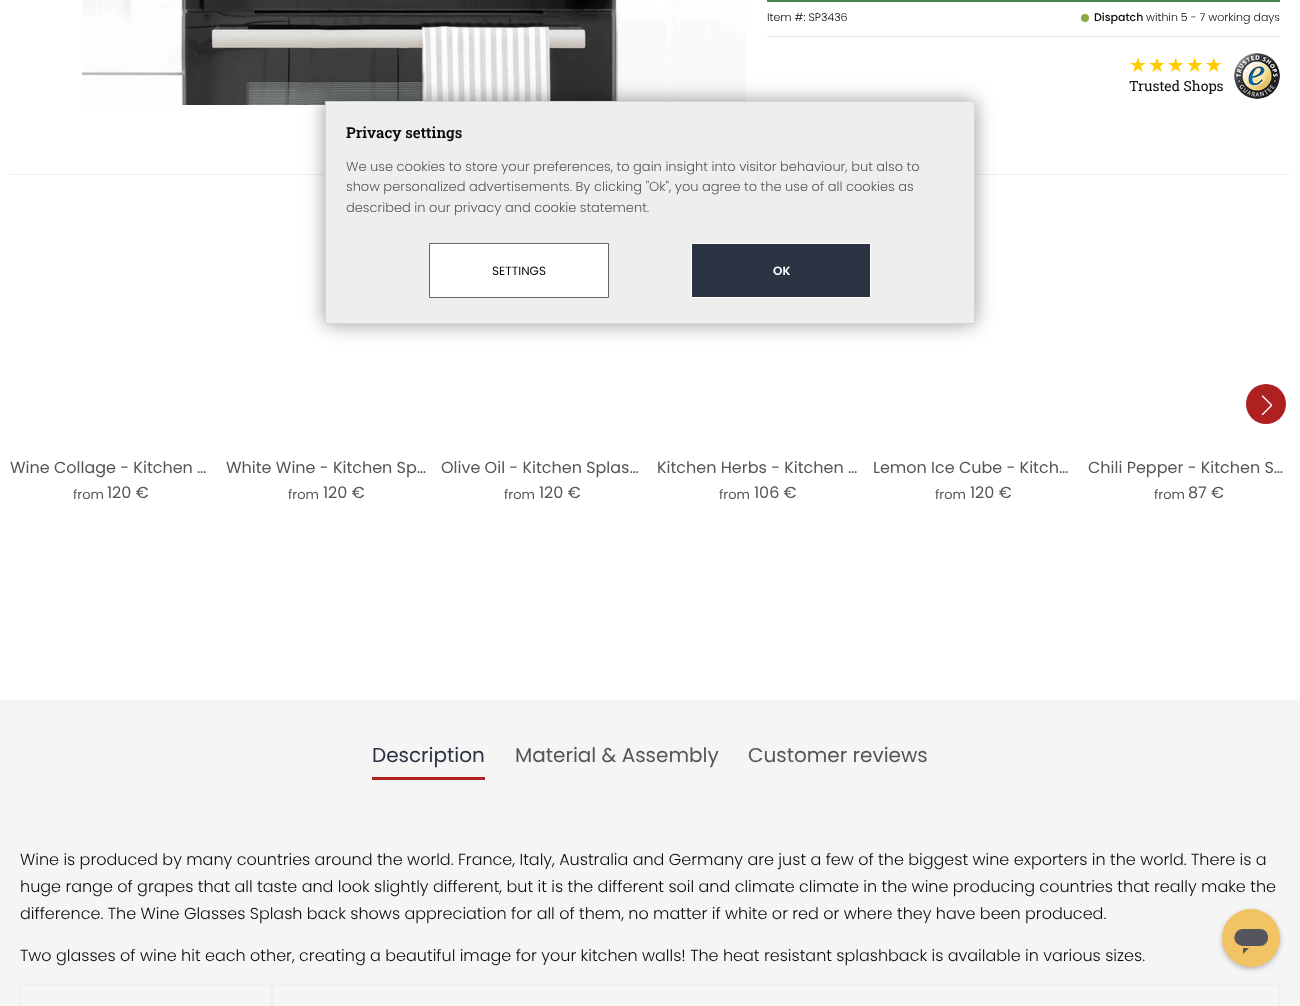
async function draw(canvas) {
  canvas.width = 1300
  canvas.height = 1006
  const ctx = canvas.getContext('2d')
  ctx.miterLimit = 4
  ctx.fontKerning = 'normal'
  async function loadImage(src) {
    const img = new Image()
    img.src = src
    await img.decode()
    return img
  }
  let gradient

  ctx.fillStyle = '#fff'
  ctx.fillRect(0, 0, 1300, 1006)
  ctx.drawImage(await loadImage('image0.png'), 82, 0, 664, 105)
  ctx.fillStyle = '#428445'
  ctx.fillRect(767, 0, 513, 2)
  ctx.drawImage(await loadImage('image1.png'), 767, 0, 513, 2)
  ctx.fillStyle = '#e9e9e9'
  ctx.fillRect(767, 36, 513, 1)
  ctx.font = '300 11px Poppins'
  ctx.fillStyle = '#0a0a0a'
  ctx.fillText('Item #: SP3436', 767, 21)
  ctx.fillStyle = '#8faa44'
  ctx.beginPath()
  ctx.arc(1085, 18, 4, 0, 2 * Math.PI)
  ctx.fill()
  ctx.font = '500 11px Poppins'
  ctx.fillStyle = '#0a0a0a'
  ctx.fillText('Dispatch', 1094, 21)
  ctx.font = '300 11px Poppins'
  ctx.fillText('within 5 - 7 working days', 1146, 21)
  ctx.letterSpacing = '1px'
  ctx.font = '20px DejaVu Sans'
  gradient = ctx.createLinearGradient(1129, 65, 1224, 65)
  gradient.addColorStop(1, '#fc0')
  gradient.addColorStop(1, '#ccc')
  ctx.fillStyle = gradient
  ctx.fillText('★★★★★', 1129, 72)
  ctx.letterSpacing = '0px'
  ctx.font = '14px Roboto Slab'
  ctx.fillStyle = '#0a0a0a'
  ctx.fillText('Trusted Shops', 1129, 91)
  ctx.drawImage(await loadImage('image2.png'), 1234, 53, 46, 46)
  ctx.fillStyle = '#eee'
  ctx.fillRect(10, 174, 1280, 1)
  ctx.fillStyle = '#af2020'
  ctx.beginPath()
  ctx.arc(1266, 404, 20, 0, 2 * Math.PI)
  ctx.fill()
  ctx.drawImage(await loadImage('image3.png'), 1261, 395, 12, 20)
  ctx.font = '16px Poppins'
  ctx.fillStyle = '#555'
  ctx.fillText('Wine Collage - Kitchen …', 10, 473)
  ctx.font = '13px Poppins'
  ctx.fillText('from', 73, 499)
  ctx.font = '16px Poppins'
  ctx.fillText('120 €', 107, 498)
  ctx.fillText('White Wine - Kitchen Sp…', 226, 473)
  ctx.font = '13px Poppins'
  ctx.fillText('from', 288, 499)
  ctx.font = '16px Poppins'
  ctx.fillText('120 €', 323, 498)
  ctx.fillText('Olive Oil - Kitchen Splas…', 441, 473)
  ctx.font = '13px Poppins'
  ctx.fillText('from', 504, 499)
  ctx.font = '16px Poppins'
  ctx.fillText('120 €', 539, 498)
  ctx.fillText('Kitchen Herbs - Kitchen …', 657, 473)
  ctx.font = '13px Poppins'
  ctx.fillText('from', 719, 499)
  ctx.font = '16px Poppins'
  ctx.fillText('106 €', 754, 498)
  ctx.fillText('Lemon Ice Cube - Kitch…', 873, 473)
  ctx.font = '13px Poppins'
  ctx.fillText('from', 935, 499)
  ctx.font = '16px Poppins'
  ctx.fillText('120 €', 970, 498)
  ctx.fillText('Chili Pepper - Kitchen S…', 1088, 473)
  ctx.font = '13px Poppins'
  ctx.fillText('from', 1154, 499)
  ctx.font = '16px Poppins'
  ctx.fillText('87 €', 1188, 498)
  ctx.fillStyle = '#f5f5f5'
  ctx.fillRect(0, 700, 1300, 306)
  ctx.font = '20px Poppins'
  ctx.fillStyle = '#293341'
  ctx.fillText('Description', 372, 762)
  ctx.fillStyle = '#af2020'
  ctx.fillRect(372, 777, 113, 3)
  ctx.fillStyle = '#555'
  ctx.fillText('Material & Assembly', 515, 762)
  ctx.fillText('Customer reviews', 748, 762)
  ctx.font = '300 16px Poppins'
  ctx.fillStyle = '#0a0a0a'
  ctx.fillText('Wine is produced by many countries around the world. France, Italy, Australia and Germany are just a few of the biggest wine exporters in the world. There is a', 20, 865)
  ctx.fillText('huge range of grapes that all taste and look slightly different, but it is the different soil and climate climate in the wine producing countries that really make the', 20, 892)
  ctx.fillText('difference. The Wine Glasses Splash back shows appreciation for all of them, no matter if white or red or where they have been produced.', 20, 919)
  ctx.fillText('Two glasses of wine hit each other, creating a beautiful image for your kitchen walls! The heat resistant splashback is available in various sizes.', 20, 961)
  ctx.strokeStyle = '#eee'
  ctx.strokeRect(20.5, 984.5, 251, 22)
  ctx.strokeRect(272.5, 984.5, 1007, 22)
  ctx.fillStyle = '#00000066'
  ctx.filter = 'blur(10px)'
  ctx.beginPath()
  ctx.rect(325, 101, 650, 223)
  ctx.fill()
  ctx.filter = 'none'
  ctx.fillStyle = '#eee'
  ctx.beginPath()
  ctx.rect(325.5, 101.5, 649, 222)
  ctx.fill()
  ctx.strokeStyle = '#d4d4d4'
  ctx.stroke()
  ctx.font = '600 15px Roboto Slab'
  ctx.fillStyle = '#0a0a0a'
  ctx.fillText('Privacy settings', 346, 138)
  ctx.font = '300 13px Poppins'
  ctx.fillStyle = '#555'
  ctx.fillText('We use cookies to store your preferences, to gain insight into visitor behaviour, but also to', 346, 171)
  ctx.fillText('show personalized advertisements. By clicking "Ok", you agree to the use of all cookies as', 346, 191)
  ctx.fillText('described in our privacy and cookie statement.', 346, 212)
  ctx.fillStyle = '#fff'
  ctx.beginPath()
  ctx.rect(429.5, 243.5, 179, 54)
  ctx.fill()
  ctx.strokeStyle = '#666'
  ctx.stroke()
  ctx.font = '12px Poppins'
  ctx.fillStyle = '#0a0a0a'
  ctx.fillText('SETTINGS', 492, 275)
  ctx.fillStyle = '#293341'
  ctx.beginPath()
  ctx.rect(691.5, 243.5, 179, 54)
  ctx.fill()
  ctx.strokeStyle = '#fff'
  ctx.stroke()
  ctx.font = '600 12px Poppins'
  ctx.fillStyle = '#fff'
  ctx.fillText('OK', 773, 275)
  ctx.fillStyle = '#00000042'
  ctx.filter = 'blur(2.5px)'
  ctx.beginPath()
  ctx.roundRect(1222, 911, 58, 58, 29)
  ctx.fill()
  ctx.filter = 'none'
  ctx.fillStyle = '#f2c363'
  ctx.beginPath()
  ctx.arc(1251, 938, 29, 0, 2 * Math.PI)
  ctx.fill()
  ctx.fillStyle = '#55555d'
  ctx.beginPath()
  ctx.moveTo(1249, 948)
  ctx.lineTo(1243, 954)
  ctx.lineTo(1243, 948)
  ctx.closePath()
  ctx.moveTo(1260, 929)
  ctx.bezierCurveTo(1270.5, 929, 1271, 945.5, 1260, 946)
  ctx.lineTo(1248.5, 946)
  ctx.bezierCurveTo(1245.5, 946, 1242.5, 946.5, 1239.5, 945)
  ctx.bezierCurveTo(1231, 941.5, 1234, 929, 1243, 929)
  ctx.closePath()
  ctx.fill()
}

draw(document.querySelector('canvas'))
